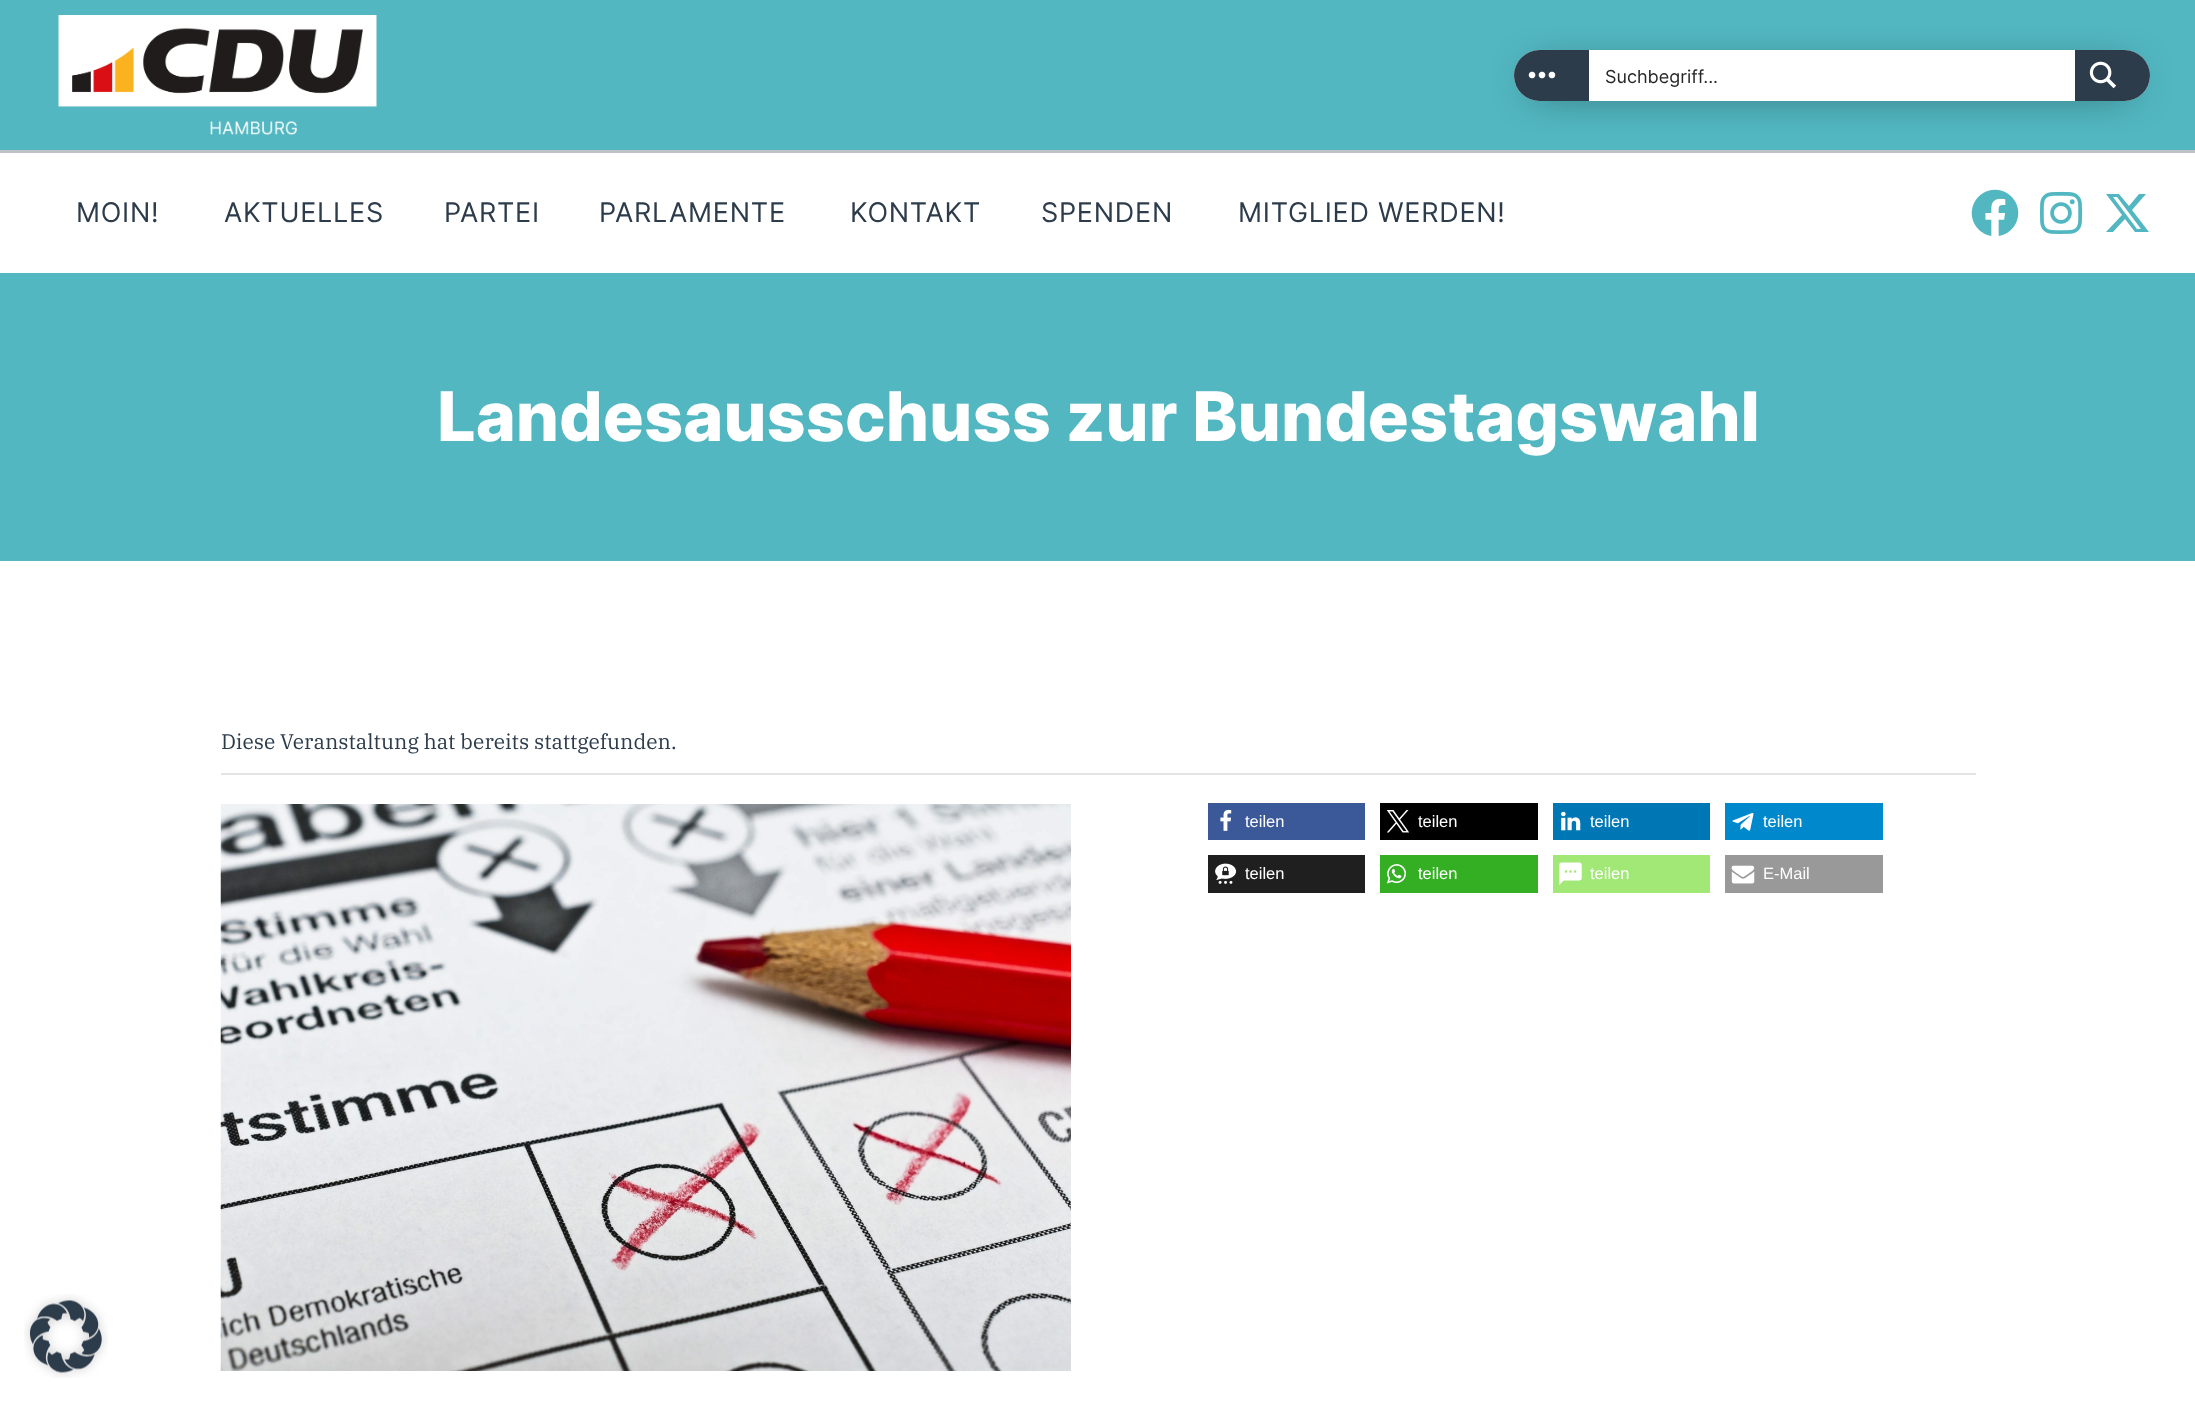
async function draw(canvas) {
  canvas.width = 2195
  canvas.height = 1402
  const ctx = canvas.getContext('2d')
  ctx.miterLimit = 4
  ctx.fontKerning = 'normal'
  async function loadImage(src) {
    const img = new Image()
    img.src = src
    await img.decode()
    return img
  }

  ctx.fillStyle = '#fff'
  ctx.fillRect(0, 0, 2195, 1402)
  ctx.fillStyle = '#52b7c1'
  ctx.fillRect(0, 0, 2195, 150)
  ctx.drawImage(await loadImage('image0.png'), 58, 15, 319, 120)
  ctx.fillStyle = '#000'
  ctx.filter = 'blur(21px)'
  ctx.beginPath()
  ctx.roundRect(1533, 75, 597, 12, 6)
  ctx.fill()
  ctx.filter = 'none'
  ctx.fillStyle = '#fff'
  ctx.beginPath()
  ctx.roundRect(1514, 50, 636, 51, 25.5)
  ctx.fill()
  ctx.fillStyle = '#2d3c4b'
  ctx.beginPath()
  ctx.roundRect(1514, 50, 75, 51, [25.5, 0, 0, 25.5])
  ctx.fill()
  ctx.drawImage(await loadImage('image1.png'), 1528, 71, 28, 8)
  ctx.font = '18px Inter'
  ctx.fillStyle = '#262626'
  ctx.fillText('Suchbegriff...', 1605, 83)
  ctx.fillStyle = '#2d3c4b'
  ctx.beginPath()
  ctx.roundRect(2075, 50, 75, 51, [0, 25.5, 25.5, 0])
  ctx.fill()
  ctx.drawImage(await loadImage('image2.png'), 2089, 61, 28, 28)
  ctx.fillStyle = '#bec1c7'
  ctx.fillRect(0, 150, 2195, 3)
  ctx.letterSpacing = '0.75px'
  ctx.font = '27px Inter'
  ctx.fillStyle = '#2d3c4b'
  ctx.fillText('MOIN!', 76, 222)
  ctx.fillText('AKTUELLES', 224, 222)
  ctx.fillText('PARTEI', 444, 222)
  ctx.fillText('PARLAMENTE', 599, 222)
  ctx.fillText('KONTAKT', 850, 222)
  ctx.fillText('SPENDEN', 1041, 222)
  ctx.fillText('MITGLIED WERDEN!', 1238, 222)
  ctx.drawImage(await loadImage('image3.png'), 1971, 189, 48, 47)
  ctx.drawImage(await loadImage('image4.png'), 2040, 191, 43, 43)
  ctx.fillStyle = '#52b7c1'
  ctx.beginPath()
  ctx.moveTo(2139, 194)
  ctx.lineTo(2146, 194)
  ctx.lineTo(2132, 210)
  ctx.lineTo(2149, 232)
  ctx.lineTo(2135, 232)
  ctx.lineTo(2125, 219)
  ctx.lineTo(2113, 232)
  ctx.lineTo(2106, 232)
  ctx.lineTo(2122, 215)
  ctx.lineTo(2106, 194)
  ctx.lineTo(2119, 194)
  ctx.lineTo(2129, 206)
  ctx.closePath()
  ctx.moveTo(2137, 229)
  ctx.lineTo(2141, 229)
  ctx.lineTo(2117, 197)
  ctx.lineTo(2113, 197)
  ctx.closePath()
  ctx.fill()
  ctx.fillRect(0, 273, 2195, 288)
  ctx.letterSpacing = '0px'
  ctx.font = '800 68.25px Inter'
  ctx.fillStyle = '#fff'
  ctx.fillText('Landesausschuss zur Bundestagswahl', 437, 441)
  ctx.fillStyle = '#e4e4e4'
  ctx.fillRect(221, 773, 1755, 2)
  ctx.font = '21px IBM Plex Serif'
  ctx.fillStyle = '#2d3c4b'
  ctx.fillText('Diese Veranstaltung hat bereits stattgefunden.', 221, 749)
  ctx.drawImage(await loadImage('image5.png'), 220, 804, 851, 567)
  ctx.fillStyle = '#3b5998'
  ctx.fillRect(1208, 803, 157, 37)
  ctx.drawImage(await loadImage('image6.png'), 1220, 809, 12, 22)
  ctx.font = '16.5px Liberation Sans'
  ctx.fillStyle = '#fff'
  ctx.fillText('teilen', 1245, 827)
  ctx.fillStyle = '#000'
  ctx.fillRect(1380, 803, 158, 37)
  ctx.drawImage(await loadImage('image7.png'), 1386, 810, 24, 23)
  ctx.fillStyle = '#fff'
  ctx.fillText('teilen', 1418, 827)
  ctx.fillStyle = '#0077b5'
  ctx.fillRect(1553, 803, 157, 37)
  ctx.drawImage(await loadImage('image8.png'), 1561, 811, 20, 20)
  ctx.fillStyle = '#fff'
  ctx.fillText('teilen', 1590, 827)
  ctx.fillStyle = '#08c'
  ctx.fillRect(1725, 803, 158, 37)
  ctx.drawImage(await loadImage('image9.png'), 1732, 812, 22, 19)
  ctx.fillStyle = '#fff'
  ctx.fillText('teilen', 1763, 827)
  ctx.fillStyle = '#1f1f1f'
  ctx.fillRect(1208, 855, 157, 38)
  ctx.drawImage(await loadImage('image10.png'), 1215, 863, 22, 21)
  ctx.fillStyle = '#fff'
  ctx.fillText('teilen', 1245, 879)
  ctx.fillStyle = '#34af23'
  ctx.fillRect(1380, 855, 158, 38)
  ctx.drawImage(await loadImage('image11.png'), 1386, 864, 21, 20)
  ctx.fillStyle = '#fff'
  ctx.fillText('teilen', 1418, 879)
  ctx.fillStyle = '#a1e877'
  ctx.fillRect(1553, 855, 157, 38)
  ctx.drawImage(await loadImage('image12.png'), 1559, 862, 23, 23)
  ctx.fillStyle = '#fff'
  ctx.fillText('teilen', 1590, 879)
  ctx.fillStyle = '#999'
  ctx.fillRect(1725, 855, 158, 38)
  ctx.drawImage(await loadImage('image13.png'), 1731, 865, 24, 19)
  ctx.fillStyle = '#fff'
  ctx.fillText('E-Mail', 1763, 879)
  ctx.drawImage(await loadImage('image14.png'), 24, 1294, 84, 84)
}

draw(document.querySelector('canvas'))
